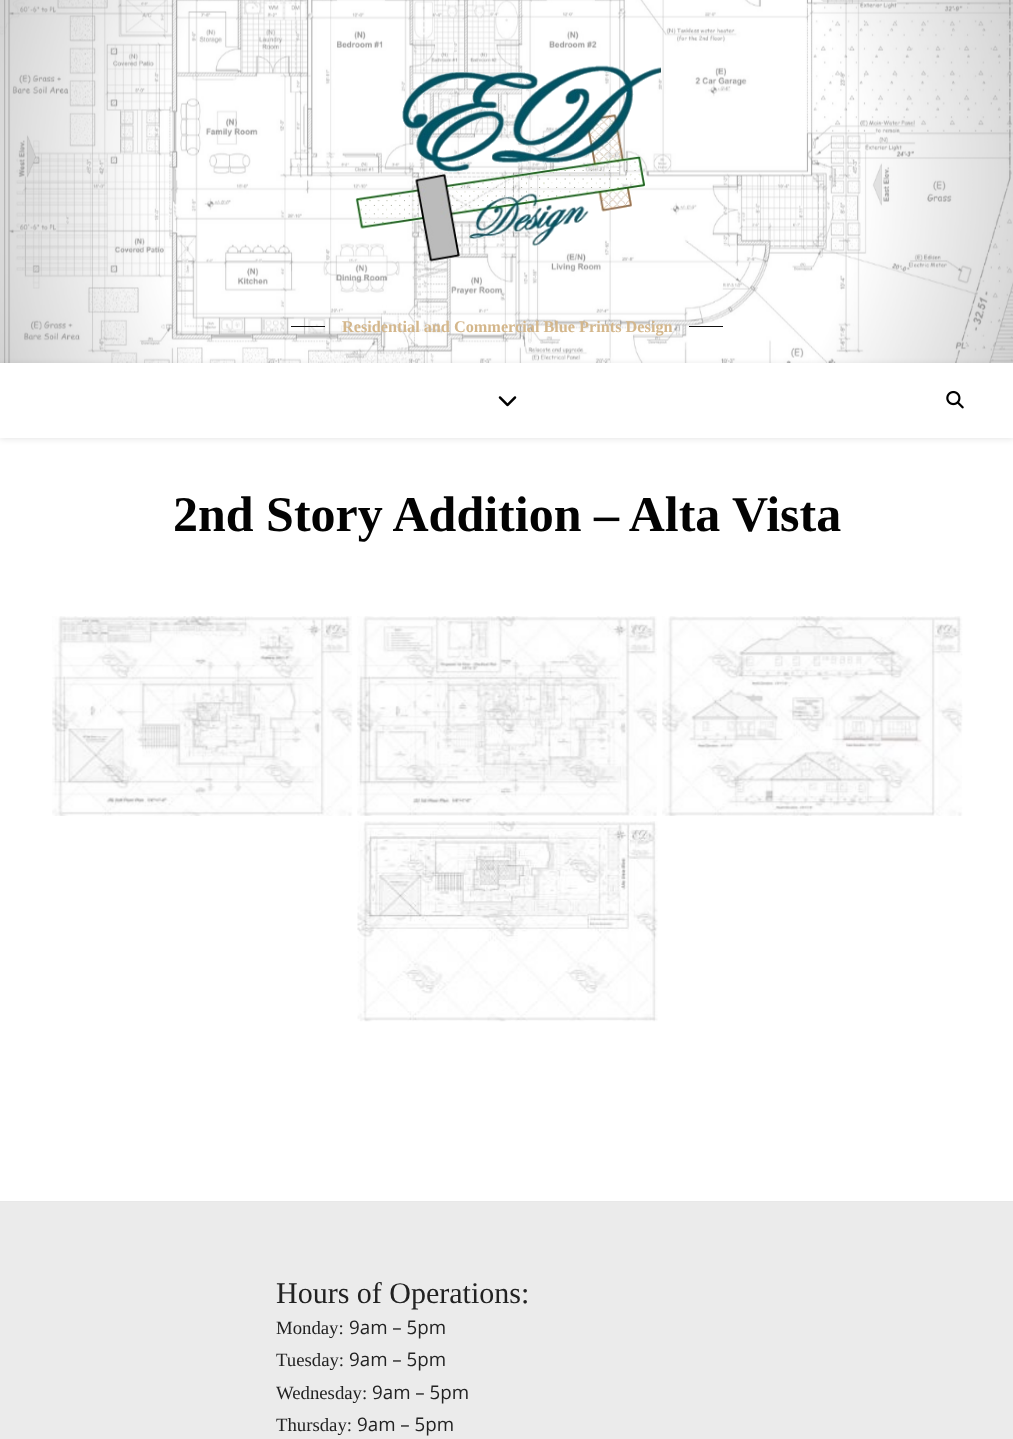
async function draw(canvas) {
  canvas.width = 1013
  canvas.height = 1439
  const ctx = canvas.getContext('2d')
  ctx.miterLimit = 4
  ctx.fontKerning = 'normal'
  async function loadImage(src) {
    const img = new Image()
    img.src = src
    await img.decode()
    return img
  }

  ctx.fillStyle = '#fff'
  ctx.fillRect(0, 0, 1013, 1439)
  ctx.drawImage(await loadImage('image0.png'), 0, 0, 1013, 363)
  ctx.drawImage(await loadImage('image1.png'), 355, 65, 306, 197)
  ctx.fillStyle = '#111'
  ctx.fillRect(291, 326, 34, 1)
  ctx.font = 'bold 16.25px Liberation Serif'
  ctx.fillStyle = '#d4b78c'
  ctx.fillText('Residential and Commercial Blue Prints Design', 342, 332)
  ctx.fillStyle = '#111'
  ctx.fillRect(689, 326, 34, 1)
  ctx.fillStyle = '#0000001a'
  ctx.filter = 'blur(3px)'
  ctx.beginPath()
  ctx.rect(0, 364, 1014, 75)
  ctx.fill()
  ctx.filter = 'none'
  ctx.fillStyle = '#fff'
  ctx.fillRect(0, 363, 1013, 75)
  ctx.drawImage(await loadImage('image2.png'), 498, 396, 19, 11)
  ctx.drawImage(await loadImage('image3.png'), 946, 390, 18, 19)
  ctx.font = 'bold 50px Liberation Serif'
  ctx.fillStyle = '#030303'
  ctx.fillText('2nd Story Addition – Alta Vista', 173, 531)
  ctx.drawImage(await loadImage('image4.png'), 52, 616, 301, 200)
  ctx.drawImage(await loadImage('image5.png'), 357, 616, 300, 200)
  ctx.drawImage(await loadImage('image6.png'), 662, 616, 301, 200)
  ctx.drawImage(await loadImage('image7.png'), 357, 821, 301, 201)
  ctx.fillStyle = '#ebebeb'
  ctx.fillRect(0, 1202, 1013, 237)
  ctx.fillStyle = '#e8e8e8'
  ctx.fillRect(0, 1201, 1013, 1)
  ctx.font = '30px Liberation Serif'
  ctx.fillStyle = '#222'
  ctx.fillText('Hours of Operations:', 276, 1303)
  ctx.font = '18.75px Liberation Serif'
  ctx.fillText('Monday:', 276, 1334)
  ctx.font = '18.75px Open Sans'
  ctx.fillText('9am – 5pm', 349, 1334)
  ctx.font = '18.75px Liberation Serif'
  ctx.fillText('Tuesday:', 276, 1366)
  ctx.font = '18.75px Open Sans'
  ctx.fillText('9am – 5pm', 349, 1366)
  ctx.font = '18.75px Liberation Serif'
  ctx.fillText('Wednesday:', 276, 1399)
  ctx.font = '18.75px Open Sans'
  ctx.fillText('9am – 5pm', 372, 1399)
  ctx.font = '18.75px Liberation Serif'
  ctx.fillText('Thursday:', 276, 1431)
  ctx.font = '18.75px Open Sans'
  ctx.fillText('9am – 5pm', 357, 1431)
}

draw(document.querySelector('canvas'))
